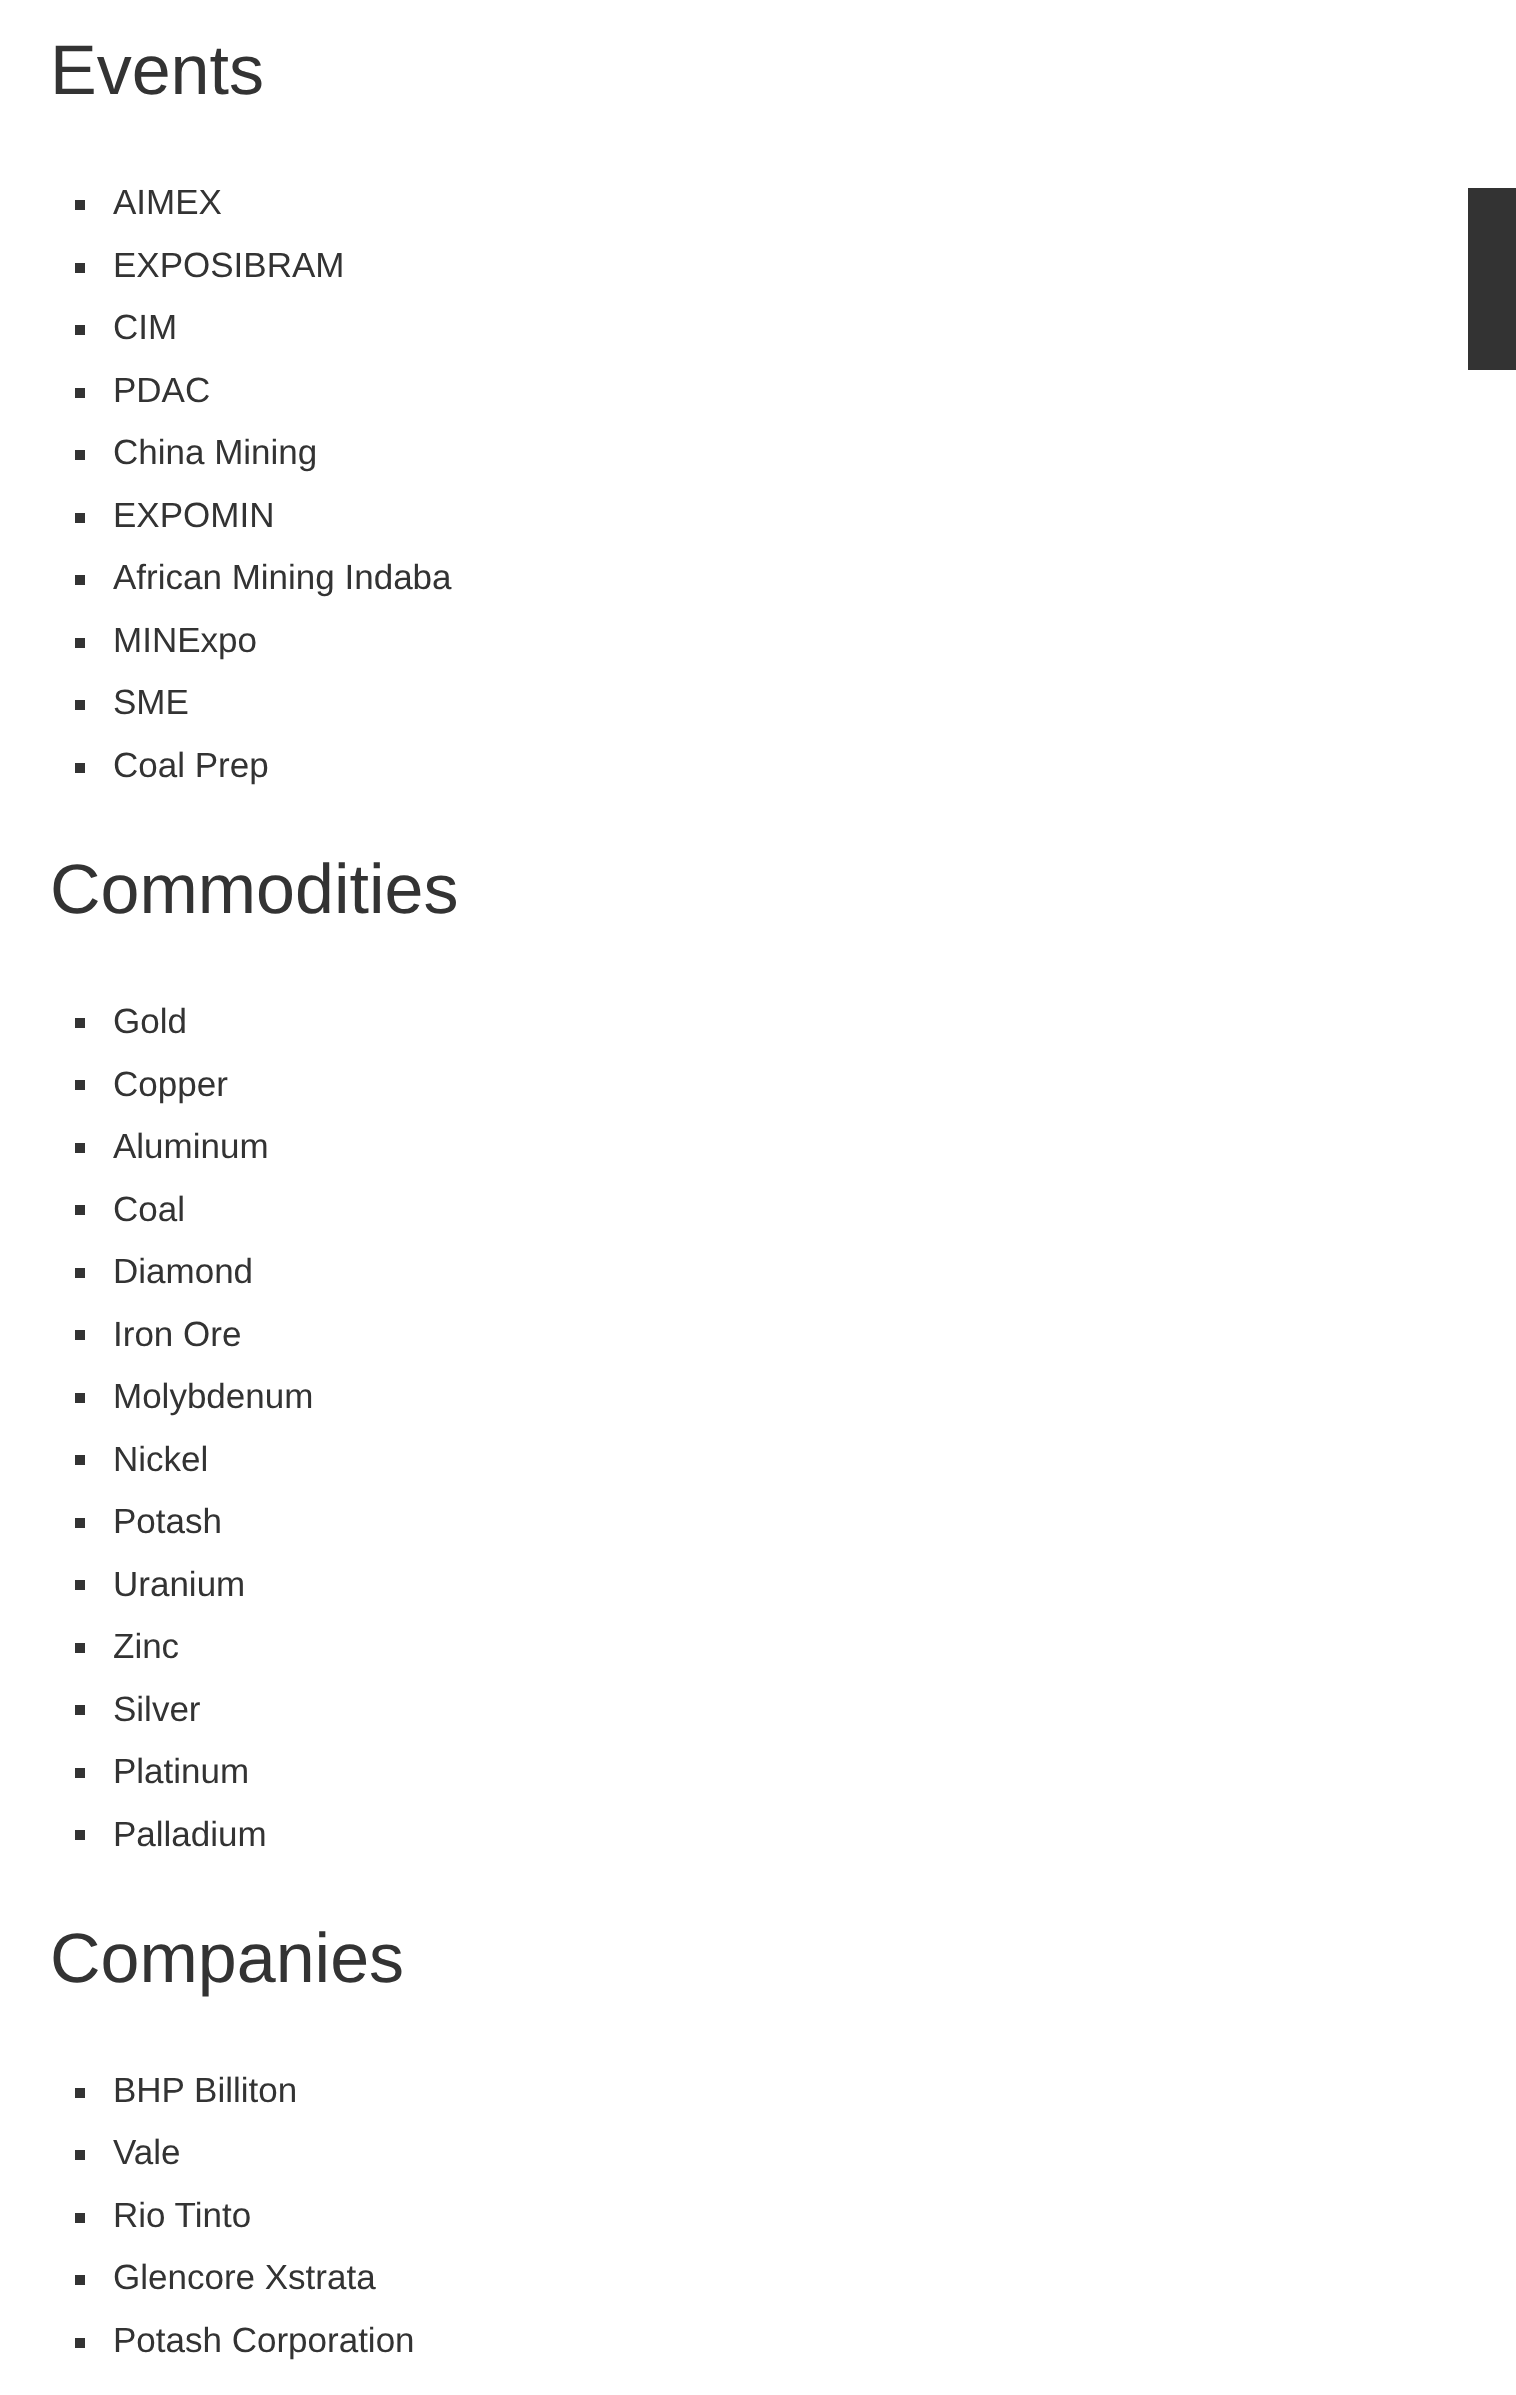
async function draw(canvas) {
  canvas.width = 1516
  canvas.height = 2395
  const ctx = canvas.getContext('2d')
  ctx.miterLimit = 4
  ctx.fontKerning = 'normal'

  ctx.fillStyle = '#fff'
  ctx.fillRect(0, 0, 1516, 2395)
  ctx.font = '70px Liberation Sans'
  ctx.fillStyle = '#333'
  ctx.fillText('Events', 50, 94)
  ctx.fillRect(75, 200, 10, 10)
  ctx.font = '35px Liberation Sans'
  ctx.fillText('AIMEX', 113, 214)
  ctx.fillRect(75, 263, 10, 10)
  ctx.fillText('EXPOSIBRAM', 113, 277)
  ctx.fillRect(75, 325, 10, 10)
  ctx.fillText('CIM', 113, 339)
  ctx.fillRect(75, 388, 10, 10)
  ctx.fillText('PDAC', 113, 402)
  ctx.fillRect(75, 450, 10, 10)
  ctx.fillText('China Mining', 113, 464)
  ctx.fillRect(75, 513, 10, 10)
  ctx.fillText('EXPOMIN', 113, 527)
  ctx.fillRect(75, 575, 10, 10)
  ctx.fillText('African Mining Indaba', 113, 589)
  ctx.fillRect(75, 638, 10, 10)
  ctx.fillText('MINExpo', 113, 652)
  ctx.fillRect(75, 700, 10, 10)
  ctx.fillText('SME', 113, 714)
  ctx.fillRect(75, 763, 10, 10)
  ctx.fillText('Coal Prep', 113, 777)
  ctx.font = '70px Liberation Sans'
  ctx.fillText('Commodities', 50, 913)
  ctx.fillRect(75, 1018, 10, 10)
  ctx.font = '35px Liberation Sans'
  ctx.fillText('Gold', 113, 1033)
  ctx.fillRect(75, 1080, 10, 10)
  ctx.fillText('Copper', 113, 1096)
  ctx.fillRect(75, 1143, 10, 10)
  ctx.fillText('Aluminum', 113, 1158)
  ctx.fillRect(75, 1205, 10, 10)
  ctx.fillText('Coal', 113, 1221)
  ctx.fillRect(75, 1268, 10, 10)
  ctx.fillText('Diamond', 113, 1283)
  ctx.fillRect(75, 1330, 10, 10)
  ctx.fillText('Iron Ore', 113, 1346)
  ctx.fillRect(75, 1393, 10, 10)
  ctx.fillText('Molybdenum', 113, 1408)
  ctx.fillRect(75, 1455, 10, 10)
  ctx.fillText('Nickel', 113, 1471)
  ctx.fillRect(75, 1518, 10, 10)
  ctx.fillText('Potash', 113, 1533)
  ctx.fillRect(75, 1580, 10, 10)
  ctx.fillText('Uranium', 113, 1596)
  ctx.fillRect(75, 1643, 10, 10)
  ctx.fillText('Zinc', 113, 1658)
  ctx.fillRect(75, 1705, 10, 10)
  ctx.fillText('Silver', 113, 1721)
  ctx.fillRect(75, 1768, 10, 10)
  ctx.fillText('Platinum', 113, 1783)
  ctx.fillRect(75, 1830, 10, 10)
  ctx.fillText('Palladium', 113, 1846)
  ctx.font = '70px Liberation Sans'
  ctx.fillText('Companies', 50, 1982)
  ctx.fillRect(75, 2088, 10, 10)
  ctx.font = '35px Liberation Sans'
  ctx.fillText('BHP Billiton', 113, 2102)
  ctx.fillRect(75, 2150, 10, 10)
  ctx.fillText('Vale', 113, 2164)
  ctx.fillRect(75, 2213, 10, 10)
  ctx.fillText('Rio Tinto', 113, 2227)
  ctx.fillRect(75, 2275, 10, 10)
  ctx.fillText('Glencore Xstrata', 113, 2289)
  ctx.fillRect(75, 2338, 10, 10)
  ctx.fillText('Potash Corporation', 113, 2352)
  ctx.fillRect(1468, 188, 48, 182)
}

draw(document.querySelector('canvas'))
